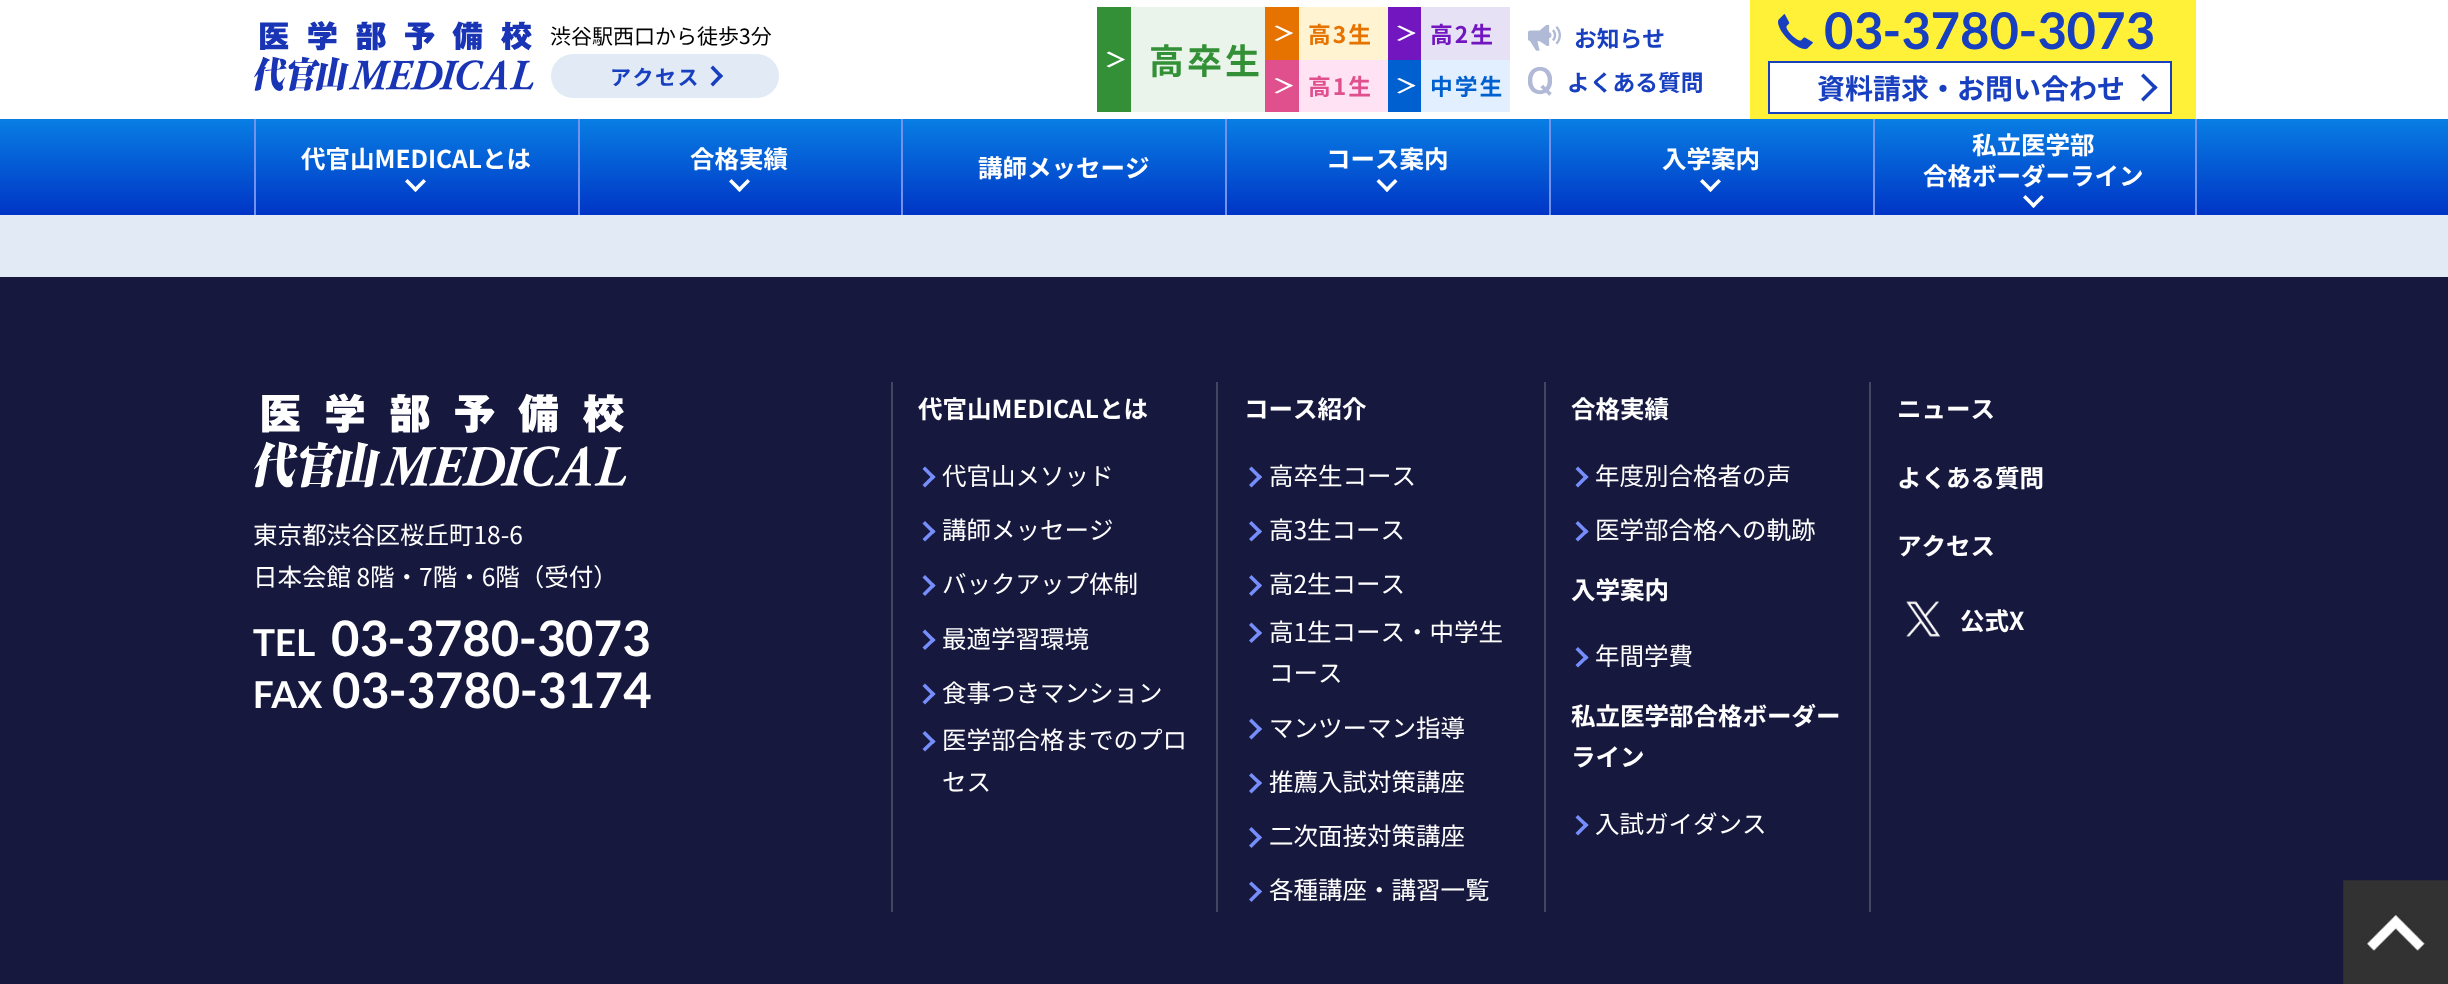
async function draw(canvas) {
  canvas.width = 2448
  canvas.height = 984
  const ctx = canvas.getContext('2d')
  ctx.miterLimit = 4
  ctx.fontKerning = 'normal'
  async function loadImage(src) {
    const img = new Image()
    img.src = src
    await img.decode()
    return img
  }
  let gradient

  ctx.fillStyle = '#e1eaf5'
  ctx.fillRect(0, 0, 2448, 984)
  ctx.fillStyle = '#fff'
  ctx.fillRect(0, 0, 2448, 119)
  ctx.drawImage(await loadImage('image0.png'), 254, 21, 280, 70)
  ctx.font = '21px Noto Sans JP'
  ctx.fillStyle = '#000'
  ctx.fillText('渋谷駅西口から徒歩3分', 550, 44)
  ctx.fillStyle = '#e1eaf5'
  ctx.beginPath()
  ctx.roundRect(551, 54, 228, 44, 22)
  ctx.fill()
  ctx.letterSpacing = '1.5px'
  ctx.font = 'bold 21px Noto Sans JP'
  ctx.fillStyle = '#173fc0'
  ctx.fillText('アクセス', 610, 85)
  ctx.beginPath()
  ctx.moveTo(713, 65.5)
  ctx.lineTo(723, 76)
  ctx.lineTo(720.5, 78.5)
  ctx.lineTo(710.5, 68)
  ctx.closePath()
  ctx.fill()
  ctx.beginPath()
  ctx.moveTo(720.5, 73.5)
  ctx.lineTo(723, 76)
  ctx.lineTo(713, 86.5)
  ctx.lineTo(710.5, 84)
  ctx.closePath()
  ctx.fill()
  ctx.fillStyle = '#eaf4eb'
  ctx.fillRect(1131, 7, 134, 105)
  ctx.fillStyle = '#339036'
  ctx.fillRect(1097, 7, 34, 105)
  ctx.fillStyle = '#fff'
  ctx.beginPath()
  ctx.moveTo(1109, 51.5)
  ctx.lineTo(1125, 59.5)
  ctx.lineTo(1122.5, 60.5)
  ctx.lineTo(1106.5, 53)
  ctx.closePath()
  ctx.fill()
  ctx.beginPath()
  ctx.moveTo(1122.5, 58.5)
  ctx.lineTo(1125, 59.5)
  ctx.lineTo(1109, 67.5)
  ctx.lineTo(1106.5, 66)
  ctx.closePath()
  ctx.fill()
  ctx.letterSpacing = '3px'
  ctx.font = 'bold 35px Noto Sans JP'
  ctx.fillStyle = '#339036'
  ctx.fillText('高卒生', 1149, 74)
  ctx.fillStyle = '#fff3d1'
  ctx.fillRect(1299, 7, 89, 53)
  ctx.fillStyle = '#e67300'
  ctx.fillRect(1265, 7, 34, 53)
  ctx.fillStyle = '#fff'
  ctx.beginPath()
  ctx.moveTo(1277, 25.5)
  ctx.lineTo(1293, 33)
  ctx.lineTo(1290.5, 34.5)
  ctx.lineTo(1274.5, 26.5)
  ctx.closePath()
  ctx.fill()
  ctx.beginPath()
  ctx.moveTo(1290.5, 32)
  ctx.lineTo(1293, 33)
  ctx.lineTo(1277, 41)
  ctx.lineTo(1274.5, 40)
  ctx.closePath()
  ctx.fill()
  ctx.letterSpacing = '2px'
  ctx.font = 'bold 22.75px Noto Sans JP'
  ctx.fillStyle = '#e67300'
  ctx.fillText('高3生', 1308, 43)
  ctx.fillStyle = '#e6e1f5'
  ctx.fillRect(1421, 7, 89, 53)
  ctx.fillStyle = '#7217c0'
  ctx.fillRect(1388, 7, 33, 53)
  ctx.fillStyle = '#fff'
  ctx.beginPath()
  ctx.moveTo(1399.5, 25.5)
  ctx.lineTo(1415.5, 33)
  ctx.lineTo(1413, 34.5)
  ctx.lineTo(1397, 26.5)
  ctx.closePath()
  ctx.fill()
  ctx.beginPath()
  ctx.moveTo(1413, 32)
  ctx.lineTo(1415.5, 33)
  ctx.lineTo(1399.5, 41)
  ctx.lineTo(1397, 40)
  ctx.closePath()
  ctx.fill()
  ctx.fillStyle = '#7217c0'
  ctx.fillText('高2生', 1430, 43)
  ctx.fillStyle = '#ffe2f4'
  ctx.fillRect(1299, 60, 89, 52)
  ctx.fillStyle = '#e0508d'
  ctx.fillRect(1265, 60, 34, 52)
  ctx.fillStyle = '#fff'
  ctx.beginPath()
  ctx.moveTo(1277, 78)
  ctx.lineTo(1293, 85.5)
  ctx.lineTo(1290.5, 87)
  ctx.lineTo(1274.5, 79)
  ctx.closePath()
  ctx.fill()
  ctx.beginPath()
  ctx.moveTo(1290.5, 84.5)
  ctx.lineTo(1293, 85.5)
  ctx.lineTo(1277, 93.5)
  ctx.lineTo(1274.5, 92.5)
  ctx.closePath()
  ctx.fill()
  ctx.fillStyle = '#e0508d'
  ctx.fillText('高1生', 1308, 95)
  ctx.fillStyle = '#e2efff'
  ctx.fillRect(1421, 60, 89, 52)
  ctx.fillStyle = '#0060d0'
  ctx.fillRect(1388, 60, 33, 52)
  ctx.fillStyle = '#fff'
  ctx.beginPath()
  ctx.moveTo(1399.5, 78)
  ctx.lineTo(1415.5, 85.5)
  ctx.lineTo(1413, 87)
  ctx.lineTo(1397, 79)
  ctx.closePath()
  ctx.fill()
  ctx.beginPath()
  ctx.moveTo(1413, 84.5)
  ctx.lineTo(1415.5, 85.5)
  ctx.lineTo(1399.5, 93.5)
  ctx.lineTo(1397, 92.5)
  ctx.closePath()
  ctx.fill()
  ctx.fillStyle = '#0060d0'
  ctx.fillText('中学生', 1430, 95)
  ctx.drawImage(await loadImage('image1.png'), 1528, 25, 33, 26)
  ctx.letterSpacing = '0px'
  ctx.fillStyle = '#173fc0'
  ctx.fillText('お知らせ', 1574, 47)
  ctx.drawImage(await loadImage('image2.png'), 1528, 67, 24, 29)
  ctx.fillText('よくある質問', 1567, 91)
  ctx.fillStyle = '#fff038'
  ctx.fillRect(1750, 0, 446, 119)
  ctx.drawImage(await loadImage('image3.png'), 1778, 14, 35, 35)
  ctx.font = 'bold 50.75px Lato'
  ctx.fillStyle = '#173fc0'
  ctx.fillText('03-3780-3073', 1824, 49)
  ctx.fillStyle = '#fff'
  ctx.beginPath()
  ctx.rect(1769, 62, 402, 51)
  ctx.fill()
  ctx.strokeStyle = '#173fc0'
  ctx.lineWidth = 2
  ctx.stroke()
  ctx.font = 'bold 28px Noto Sans JP'
  ctx.fillStyle = '#173fc0'
  ctx.fillText('資料請求・お問い合わせ', 1817, 99)
  ctx.beginPath()
  ctx.moveTo(2143.5, 73.5)
  ctx.lineTo(2157.5, 87.5)
  ctx.lineTo(2155, 90)
  ctx.lineTo(2141, 76)
  ctx.closePath()
  ctx.fill()
  ctx.beginPath()
  ctx.moveTo(2155, 85)
  ctx.lineTo(2157.5, 87.5)
  ctx.lineTo(2143.5, 101.5)
  ctx.lineTo(2141, 99)
  ctx.closePath()
  ctx.fill()
  gradient = ctx.createLinearGradient(1224, 119, 1224, 215)
  gradient.addColorStop(0, '#087ee3')
  gradient.addColorStop(1, '#0035c6')
  ctx.fillStyle = gradient
  ctx.fillRect(0, 119, 2448, 96)
  ctx.fillStyle = '#7292ed'
  ctx.fillRect(254, 119, 2, 96)
  ctx.font = 'bold 24.5px Noto Sans JP'
  ctx.fillStyle = '#fff'
  ctx.fillText('代官山MEDICALとは', 301, 168)
  ctx.beginPath()
  ctx.moveTo(426, 181.5)
  ctx.lineTo(415.5, 192)
  ctx.lineTo(413, 189.5)
  ctx.lineTo(423.5, 179)
  ctx.closePath()
  ctx.fill()
  ctx.beginPath()
  ctx.moveTo(418, 189.5)
  ctx.lineTo(415.5, 192)
  ctx.lineTo(405, 181.5)
  ctx.lineTo(407.5, 179)
  ctx.closePath()
  ctx.fill()
  ctx.fillStyle = '#7292ed'
  ctx.fillRect(578, 119, 2, 96)
  ctx.fillStyle = '#fff'
  ctx.fillText('合格実績', 690, 168)
  ctx.beginPath()
  ctx.moveTo(750, 181.5)
  ctx.lineTo(739.5, 192)
  ctx.lineTo(737, 189.5)
  ctx.lineTo(747.5, 179)
  ctx.closePath()
  ctx.fill()
  ctx.beginPath()
  ctx.moveTo(742, 189.5)
  ctx.lineTo(739.5, 192)
  ctx.lineTo(729, 181.5)
  ctx.lineTo(731.5, 179)
  ctx.closePath()
  ctx.fill()
  ctx.fillStyle = '#7292ed'
  ctx.fillRect(901, 119, 2, 96)
  ctx.fillStyle = '#fff'
  ctx.fillText('講師メッセージ', 978, 177)
  ctx.fillStyle = '#7292ed'
  ctx.fillRect(1225, 119, 2, 96)
  ctx.fillStyle = '#fff'
  ctx.fillText('コース案内', 1326, 168)
  ctx.beginPath()
  ctx.moveTo(1397.5, 181.5)
  ctx.lineTo(1387, 192)
  ctx.lineTo(1384.5, 189.5)
  ctx.lineTo(1395, 179)
  ctx.closePath()
  ctx.fill()
  ctx.beginPath()
  ctx.moveTo(1389.5, 189.5)
  ctx.lineTo(1387, 192)
  ctx.lineTo(1376.5, 181.5)
  ctx.lineTo(1379, 179)
  ctx.closePath()
  ctx.fill()
  ctx.fillStyle = '#7292ed'
  ctx.fillRect(1549, 119, 2, 96)
  ctx.fillStyle = '#fff'
  ctx.fillText('入学案内', 1662, 168)
  ctx.beginPath()
  ctx.moveTo(1721, 181.5)
  ctx.lineTo(1710.5, 192)
  ctx.lineTo(1708, 189.5)
  ctx.lineTo(1718.5, 179)
  ctx.closePath()
  ctx.fill()
  ctx.beginPath()
  ctx.moveTo(1713, 189.5)
  ctx.lineTo(1710.5, 192)
  ctx.lineTo(1700, 181.5)
  ctx.lineTo(1702.5, 179)
  ctx.closePath()
  ctx.fill()
  ctx.fillStyle = '#7292ed'
  ctx.fillRect(2195, 119, 2, 96)
  ctx.fillRect(1873, 119, 2, 96)
  ctx.fillStyle = '#fff'
  ctx.fillText('私立医学部', 1972, 154)
  ctx.fillText('合格ボーダーライン', 1923, 185)
  ctx.beginPath()
  ctx.moveTo(2044, 197.5)
  ctx.lineTo(2033.5, 208)
  ctx.lineTo(2031, 205.5)
  ctx.lineTo(2041.5, 195)
  ctx.closePath()
  ctx.fill()
  ctx.beginPath()
  ctx.moveTo(2036, 205.5)
  ctx.lineTo(2033.5, 208)
  ctx.lineTo(2023, 197.5)
  ctx.lineTo(2025.5, 195)
  ctx.closePath()
  ctx.fill()
  ctx.fillStyle = '#17183e'
  ctx.fillRect(0, 277, 2448, 707)
  ctx.drawImage(await loadImage('image4.png'), 254, 393, 373, 95)
  ctx.font = '24.5px Noto Sans JP'
  ctx.fillStyle = '#fff'
  ctx.fillText('東京都渋谷区桜丘町18-6', 253, 544)
  ctx.fillText('日本会館 8階・7階・6階（受付）', 253, 586)
  ctx.font = 'bold 37px Lato'
  ctx.fillText('TEL', 253, 656)
  ctx.font = 'bold 49px Lato'
  ctx.fillText('03-3780-3073', 331, 656)
  ctx.font = 'bold 37px Lato'
  ctx.fillText('FAX', 253, 708)
  ctx.font = 'bold 49px Lato'
  ctx.fillText('03-3780-3174', 332, 708)
  ctx.fillStyle = '#454560'
  ctx.fillRect(891, 382, 2, 530)
  ctx.font = 'bold 24.5px Noto Sans JP'
  ctx.fillStyle = '#fff'
  ctx.fillText('代官山MEDICALとは', 918, 418)
  ctx.fillStyle = '#768efc'
  ctx.beginPath()
  ctx.moveTo(925, 466.5)
  ctx.lineTo(935.5, 477)
  ctx.lineTo(933, 479.5)
  ctx.lineTo(922.5, 469)
  ctx.closePath()
  ctx.fill()
  ctx.beginPath()
  ctx.moveTo(933, 474.5)
  ctx.lineTo(935.5, 477)
  ctx.lineTo(925, 487.5)
  ctx.lineTo(922.5, 485)
  ctx.closePath()
  ctx.fill()
  ctx.font = '24.5px Noto Sans JP'
  ctx.fillStyle = '#fff'
  ctx.fillText('代官山メソッド', 942, 485)
  ctx.fillStyle = '#768efc'
  ctx.beginPath()
  ctx.moveTo(925, 521)
  ctx.lineTo(935.5, 531.5)
  ctx.lineTo(933, 534)
  ctx.lineTo(922.5, 523.5)
  ctx.closePath()
  ctx.fill()
  ctx.beginPath()
  ctx.moveTo(933, 529)
  ctx.lineTo(935.5, 531.5)
  ctx.lineTo(925, 541.5)
  ctx.lineTo(922.5, 539)
  ctx.closePath()
  ctx.fill()
  ctx.fillStyle = '#fff'
  ctx.fillText('講師メッセージ', 942, 539)
  ctx.fillStyle = '#768efc'
  ctx.beginPath()
  ctx.moveTo(925, 575)
  ctx.lineTo(935.5, 585.5)
  ctx.lineTo(933, 588)
  ctx.lineTo(922.5, 577.5)
  ctx.closePath()
  ctx.fill()
  ctx.beginPath()
  ctx.moveTo(933, 583)
  ctx.lineTo(935.5, 585.5)
  ctx.lineTo(925, 596)
  ctx.lineTo(922.5, 593.5)
  ctx.closePath()
  ctx.fill()
  ctx.fillStyle = '#fff'
  ctx.fillText('バックアップ体制', 942, 593)
  ctx.fillStyle = '#768efc'
  ctx.beginPath()
  ctx.moveTo(925, 629.5)
  ctx.lineTo(935.5, 640)
  ctx.lineTo(933, 642.5)
  ctx.lineTo(922.5, 632)
  ctx.closePath()
  ctx.fill()
  ctx.beginPath()
  ctx.moveTo(933, 637.5)
  ctx.lineTo(935.5, 640)
  ctx.lineTo(925, 650)
  ctx.lineTo(922.5, 647.5)
  ctx.closePath()
  ctx.fill()
  ctx.fillStyle = '#fff'
  ctx.fillText('最適学習環境', 942, 648)
  ctx.fillStyle = '#768efc'
  ctx.beginPath()
  ctx.moveTo(925, 683.5)
  ctx.lineTo(935.5, 694)
  ctx.lineTo(933, 696.5)
  ctx.lineTo(922.5, 686)
  ctx.closePath()
  ctx.fill()
  ctx.beginPath()
  ctx.moveTo(933, 691.5)
  ctx.lineTo(935.5, 694)
  ctx.lineTo(925, 704.5)
  ctx.lineTo(922.5, 702)
  ctx.closePath()
  ctx.fill()
  ctx.fillStyle = '#fff'
  ctx.fillText('食事つきマンション', 942, 702)
  ctx.fillStyle = '#768efc'
  ctx.beginPath()
  ctx.moveTo(925, 731)
  ctx.lineTo(935.5, 741.5)
  ctx.lineTo(933, 744)
  ctx.lineTo(922.5, 733.5)
  ctx.closePath()
  ctx.fill()
  ctx.beginPath()
  ctx.moveTo(933, 739)
  ctx.lineTo(935.5, 741.5)
  ctx.lineTo(925, 751.5)
  ctx.lineTo(922.5, 749)
  ctx.closePath()
  ctx.fill()
  ctx.fillStyle = '#fff'
  ctx.fillText('医学部合格までのプロ', 942, 749)
  ctx.fillText('セス', 942, 791)
  ctx.fillStyle = '#454560'
  ctx.fillRect(1216, 382, 2, 530)
  ctx.font = 'bold 24.5px Noto Sans JP'
  ctx.fillStyle = '#fff'
  ctx.fillText('コース紹介', 1244, 418)
  ctx.fillStyle = '#768efc'
  ctx.beginPath()
  ctx.moveTo(1251.5, 466.5)
  ctx.lineTo(1262, 477)
  ctx.lineTo(1259.5, 479.5)
  ctx.lineTo(1249, 469)
  ctx.closePath()
  ctx.fill()
  ctx.beginPath()
  ctx.moveTo(1259.5, 474.5)
  ctx.lineTo(1262, 477)
  ctx.lineTo(1251.5, 487.5)
  ctx.lineTo(1249, 485)
  ctx.closePath()
  ctx.fill()
  ctx.font = '24.5px Noto Sans JP'
  ctx.fillStyle = '#fff'
  ctx.fillText('高卒生コース', 1269, 485)
  ctx.fillStyle = '#768efc'
  ctx.beginPath()
  ctx.moveTo(1251.5, 521)
  ctx.lineTo(1262, 531.5)
  ctx.lineTo(1259.5, 534)
  ctx.lineTo(1249, 523.5)
  ctx.closePath()
  ctx.fill()
  ctx.beginPath()
  ctx.moveTo(1259.5, 529)
  ctx.lineTo(1262, 531.5)
  ctx.lineTo(1251.5, 541.5)
  ctx.lineTo(1249, 539)
  ctx.closePath()
  ctx.fill()
  ctx.fillStyle = '#fff'
  ctx.fillText('高3生コース', 1269, 539)
  ctx.fillStyle = '#768efc'
  ctx.beginPath()
  ctx.moveTo(1251.5, 575)
  ctx.lineTo(1262, 585.5)
  ctx.lineTo(1259.5, 588)
  ctx.lineTo(1249, 577.5)
  ctx.closePath()
  ctx.fill()
  ctx.beginPath()
  ctx.moveTo(1259.5, 583)
  ctx.lineTo(1262, 585.5)
  ctx.lineTo(1251.5, 596)
  ctx.lineTo(1249, 593.5)
  ctx.closePath()
  ctx.fill()
  ctx.fillStyle = '#fff'
  ctx.fillText('高2生コース', 1269, 593)
  ctx.fillStyle = '#768efc'
  ctx.beginPath()
  ctx.moveTo(1251.5, 622.5)
  ctx.lineTo(1262, 633)
  ctx.lineTo(1259.5, 635.5)
  ctx.lineTo(1249, 625)
  ctx.closePath()
  ctx.fill()
  ctx.beginPath()
  ctx.moveTo(1259.5, 630.5)
  ctx.lineTo(1262, 633)
  ctx.lineTo(1251.5, 643)
  ctx.lineTo(1249, 640.5)
  ctx.closePath()
  ctx.fill()
  ctx.fillStyle = '#fff'
  ctx.fillText('高1生コース・中学生', 1269, 641)
  ctx.fillText('コース', 1269, 682)
  ctx.fillStyle = '#768efc'
  ctx.beginPath()
  ctx.moveTo(1251.5, 718.5)
  ctx.lineTo(1262, 729)
  ctx.lineTo(1259.5, 731.5)
  ctx.lineTo(1249, 721)
  ctx.closePath()
  ctx.fill()
  ctx.beginPath()
  ctx.moveTo(1259.5, 726.5)
  ctx.lineTo(1262, 729)
  ctx.lineTo(1251.5, 739.5)
  ctx.lineTo(1249, 737)
  ctx.closePath()
  ctx.fill()
  ctx.fillStyle = '#fff'
  ctx.fillText('マンツーマン指導', 1269, 737)
  ctx.fillStyle = '#768efc'
  ctx.beginPath()
  ctx.moveTo(1251.5, 773)
  ctx.lineTo(1262, 783)
  ctx.lineTo(1259.5, 785.5)
  ctx.lineTo(1249, 775.5)
  ctx.closePath()
  ctx.fill()
  ctx.beginPath()
  ctx.moveTo(1259.5, 780.5)
  ctx.lineTo(1262, 783)
  ctx.lineTo(1251.5, 793.5)
  ctx.lineTo(1249, 791)
  ctx.closePath()
  ctx.fill()
  ctx.fillStyle = '#fff'
  ctx.fillText('推薦入試対策講座', 1269, 791)
  ctx.fillStyle = '#768efc'
  ctx.beginPath()
  ctx.moveTo(1251.5, 827)
  ctx.lineTo(1262, 837.5)
  ctx.lineTo(1259.5, 840)
  ctx.lineTo(1249, 829.5)
  ctx.closePath()
  ctx.fill()
  ctx.beginPath()
  ctx.moveTo(1259.5, 835)
  ctx.lineTo(1262, 837.5)
  ctx.lineTo(1251.5, 848)
  ctx.lineTo(1249, 845.5)
  ctx.closePath()
  ctx.fill()
  ctx.fillStyle = '#fff'
  ctx.fillText('二次面接対策講座', 1269, 845)
  ctx.fillStyle = '#768efc'
  ctx.beginPath()
  ctx.moveTo(1251.5, 881.5)
  ctx.lineTo(1262, 891.5)
  ctx.lineTo(1259.5, 894)
  ctx.lineTo(1249, 884)
  ctx.closePath()
  ctx.fill()
  ctx.beginPath()
  ctx.moveTo(1259.5, 889)
  ctx.lineTo(1262, 891.5)
  ctx.lineTo(1251.5, 902)
  ctx.lineTo(1249, 899.5)
  ctx.closePath()
  ctx.fill()
  ctx.fillStyle = '#fff'
  ctx.fillText('各種講座・講習一覧', 1269, 899)
  ctx.fillStyle = '#454560'
  ctx.fillRect(1544, 382, 2, 530)
  ctx.font = 'bold 24.5px Noto Sans JP'
  ctx.fillStyle = '#fff'
  ctx.fillText('合格実績', 1571, 418)
  ctx.fillStyle = '#768efc'
  ctx.beginPath()
  ctx.moveTo(1578, 466.5)
  ctx.lineTo(1588.5, 477)
  ctx.lineTo(1586, 479.5)
  ctx.lineTo(1575.5, 469)
  ctx.closePath()
  ctx.fill()
  ctx.beginPath()
  ctx.moveTo(1586, 474.5)
  ctx.lineTo(1588.5, 477)
  ctx.lineTo(1578, 487.5)
  ctx.lineTo(1575.5, 485)
  ctx.closePath()
  ctx.fill()
  ctx.font = '24.5px Noto Sans JP'
  ctx.fillStyle = '#fff'
  ctx.fillText('年度別合格者の声', 1595, 485)
  ctx.fillStyle = '#768efc'
  ctx.beginPath()
  ctx.moveTo(1578, 521)
  ctx.lineTo(1588.5, 531.5)
  ctx.lineTo(1586, 534)
  ctx.lineTo(1575.5, 523.5)
  ctx.closePath()
  ctx.fill()
  ctx.beginPath()
  ctx.moveTo(1586, 529)
  ctx.lineTo(1588.5, 531.5)
  ctx.lineTo(1578, 541.5)
  ctx.lineTo(1575.5, 539)
  ctx.closePath()
  ctx.fill()
  ctx.fillStyle = '#fff'
  ctx.fillText('医学部合格への軌跡', 1595, 539)
  ctx.font = 'bold 24.5px Noto Sans JP'
  ctx.fillText('入学案内', 1571, 599)
  ctx.fillStyle = '#768efc'
  ctx.beginPath()
  ctx.moveTo(1578, 647)
  ctx.lineTo(1588.5, 657.5)
  ctx.lineTo(1586, 660)
  ctx.lineTo(1575.5, 649.5)
  ctx.closePath()
  ctx.fill()
  ctx.beginPath()
  ctx.moveTo(1586, 655)
  ctx.lineTo(1588.5, 657.5)
  ctx.lineTo(1578, 667.5)
  ctx.lineTo(1575.5, 665)
  ctx.closePath()
  ctx.fill()
  ctx.font = '24.5px Noto Sans JP'
  ctx.fillStyle = '#fff'
  ctx.fillText('年間学費', 1595, 665)
  ctx.font = 'bold 24.5px Noto Sans JP'
  ctx.fillText('私立医学部合格ボーダー', 1571, 725)
  ctx.fillText('ライン', 1571, 766)
  ctx.fillStyle = '#768efc'
  ctx.beginPath()
  ctx.moveTo(1578, 815)
  ctx.lineTo(1588.5, 825)
  ctx.lineTo(1586, 827.5)
  ctx.lineTo(1575.5, 817.5)
  ctx.closePath()
  ctx.fill()
  ctx.beginPath()
  ctx.moveTo(1586, 822.5)
  ctx.lineTo(1588.5, 825)
  ctx.lineTo(1578, 835.5)
  ctx.lineTo(1575.5, 833)
  ctx.closePath()
  ctx.fill()
  ctx.font = '24.5px Noto Sans JP'
  ctx.fillStyle = '#fff'
  ctx.fillText('入試ガイダンス', 1595, 833)
  ctx.fillStyle = '#454560'
  ctx.fillRect(1869, 382, 2, 530)
  ctx.font = 'bold 24.5px Noto Sans JP'
  ctx.fillStyle = '#fff'
  ctx.fillText('ニュース', 1897, 418)
  ctx.fillText('よくある質問', 1897, 487)
  ctx.fillText('アクセス', 1897, 555)
  ctx.drawImage(await loadImage('image5.png'), 1906, 601, 35, 36)
  ctx.fillText('公式X', 1960, 630)
  ctx.drawImage(await loadImage('image6.png'), 2343, 880, 105, 104)
}

draw(document.querySelector('canvas'))
